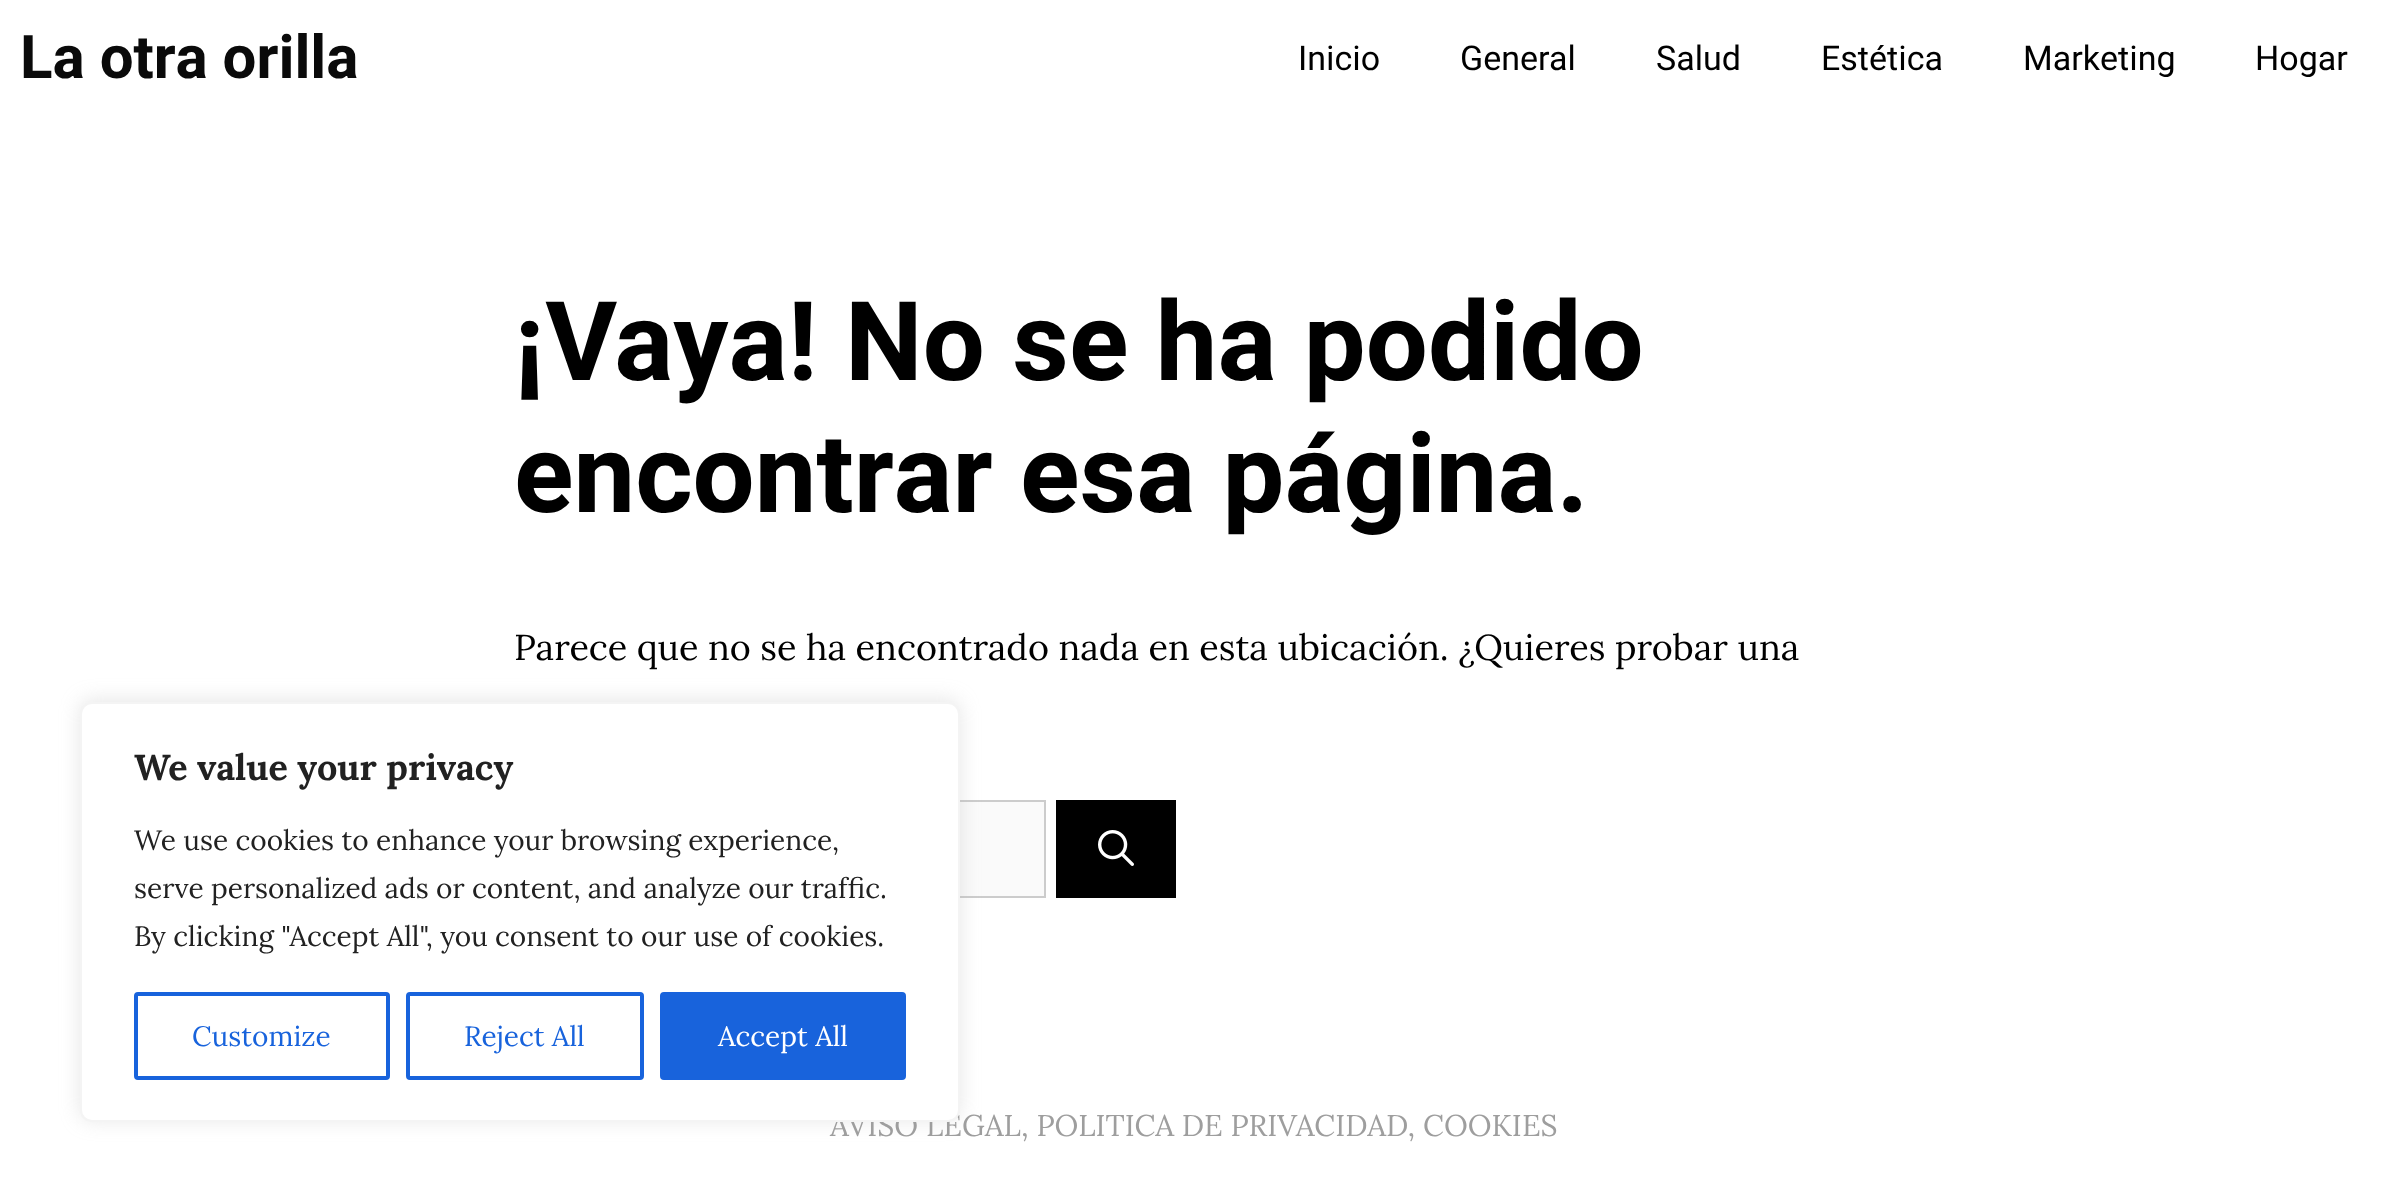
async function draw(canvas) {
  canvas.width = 2388
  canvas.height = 1201
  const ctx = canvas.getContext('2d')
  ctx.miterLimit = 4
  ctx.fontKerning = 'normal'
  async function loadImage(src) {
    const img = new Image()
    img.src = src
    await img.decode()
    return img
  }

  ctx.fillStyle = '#fff'
  ctx.fillRect(0, 0, 2388, 1201)
  ctx.font = 'bold 60px Heebo'
  ctx.fillStyle = '#0a0a0a'
  ctx.fillText('La otra orilla', 20, 78)
  ctx.font = '34px Heebo'
  ctx.fillStyle = '#000'
  ctx.fillText('Inicio', 1298, 70)
  ctx.fillText('General', 1460, 70)
  ctx.fillText('Salud', 1656, 70)
  ctx.fillText('Estética', 1821, 70)
  ctx.fillText('Marketing', 2023, 70)
  ctx.fillText('Hogar', 2255, 70)
  ctx.font = 'bold 110px Heebo'
  ctx.fillText('¡Vaya! No se ha podido', 514, 380)
  ctx.fillText('encontrar esa página.', 514, 512)
  ctx.font = '36px Lora'
  ctx.fillText('Parece que no se ha encontrado nada en esta ubicación. ¿Quieres probar una', 514, 660)
  ctx.fillStyle = '#fafafa'
  ctx.fillRect(960, 802, 84, 94)
  ctx.strokeStyle = '#ccc'
  ctx.lineWidth = 2
  ctx.strokeRect(515, 801, 530, 96)
  ctx.fillStyle = '#000'
  ctx.fillRect(1056, 800, 120, 98)
  ctx.drawImage(await loadImage('image0.png'), 1098, 830, 36, 36)
  ctx.fillStyle = '#acabab4d'
  ctx.filter = 'blur(10px)'
  ctx.beginPath()
  ctx.roundRect(80, 700, 880, 420, 12)
  ctx.fill()
  ctx.filter = 'none'
  ctx.font = '30px Lora'
  ctx.fillStyle = '#9e9e9e'
  ctx.fillText('AVISO LEGAL, POLITICA DE PRIVACIDAD, COOKIES', 830, 1136)
  ctx.fillStyle = '#fff'
  ctx.beginPath()
  ctx.roundRect(81, 703, 878, 418, 11)
  ctx.fill()
  ctx.strokeStyle = '#f4f4f4'
  ctx.stroke()
  ctx.font = 'bold 36px Lora'
  ctx.fillStyle = '#212121'
  ctx.fillText('We value your privacy', 134, 780)
  ctx.font = '28px Lora'
  ctx.fillText('We use cookies to enhance your browsing experience,', 134, 850)
  ctx.fillText('serve personalized ads or content, and analyze our traffic.', 134, 898)
  ctx.fillText('By clicking "Accept All", you consent to our use of cookies.', 134, 946)
  ctx.beginPath()
  ctx.roundRect(136, 994, 252, 84, 2)
  ctx.strokeStyle = '#1863dc'
  ctx.lineWidth = 4
  ctx.stroke()
  ctx.fillStyle = '#1863dc'
  ctx.fillText('Customize', 192, 1046)
  ctx.beginPath()
  ctx.roundRect(408, 994, 234, 84, 2)
  ctx.stroke()
  ctx.fillText('Reject All', 464, 1046)
  ctx.beginPath()
  ctx.roundRect(662, 994, 242, 84, 2)
  ctx.fill()
  ctx.stroke()
  ctx.fillStyle = '#fff'
  ctx.fillText('Accept All', 718, 1046)
}

draw(document.querySelector('canvas'))
